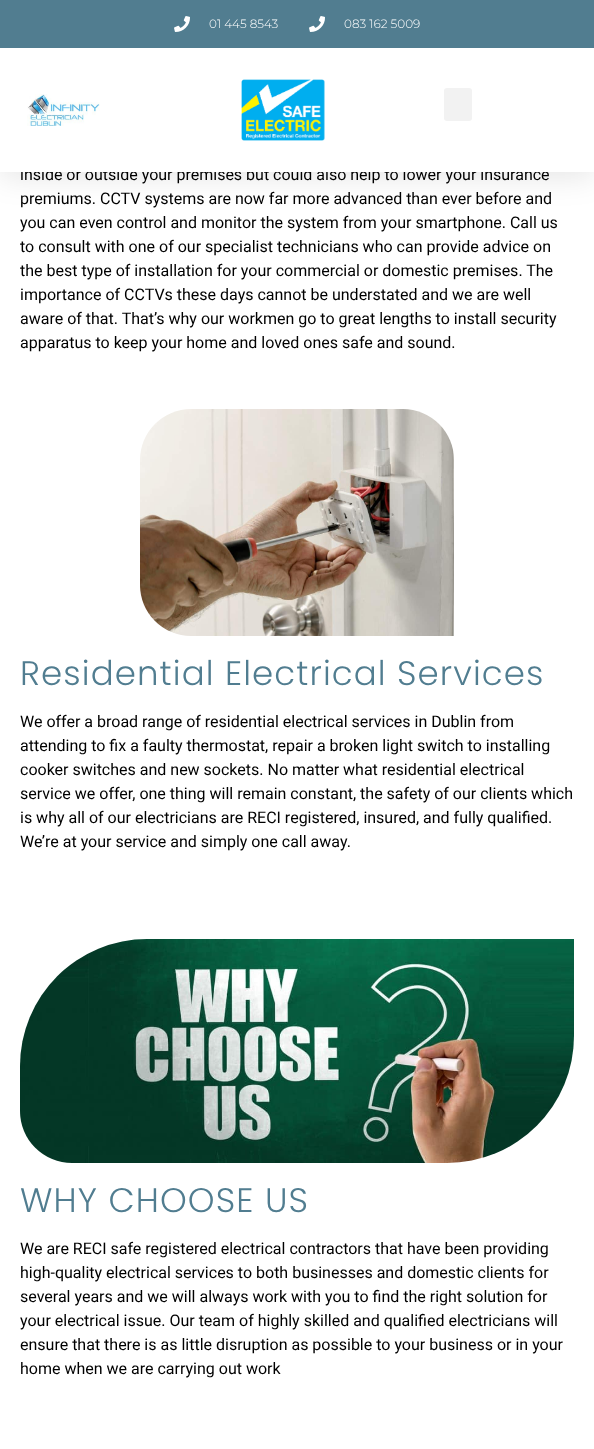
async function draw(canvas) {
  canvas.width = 594
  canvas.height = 1449
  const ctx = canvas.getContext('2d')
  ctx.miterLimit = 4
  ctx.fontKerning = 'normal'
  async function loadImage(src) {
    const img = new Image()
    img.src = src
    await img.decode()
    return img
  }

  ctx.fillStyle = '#fff'
  ctx.fillRect(0, 0, 594, 1449)
  ctx.fillStyle = '#0000001a'
  ctx.filter = 'blur(15px)'
  ctx.beginPath()
  ctx.rect(0, 5, 594, 172)
  ctx.fill()
  ctx.filter = 'none'
  ctx.fillStyle = '#517d90'
  ctx.fillRect(0, 0, 594, 48)
  ctx.drawImage(await loadImage('image0.png'), 174, 16, 16, 16)
  ctx.font = '300 12px Montserrat'
  ctx.fillStyle = '#fff'
  ctx.fillText('01 445 8543', 209, 28)
  ctx.drawImage(await loadImage('image0.png'), 309, 16, 16, 16)
  ctx.fillText('083 162 5009', 344, 28)
  ctx.font = '16px Roboto'
  ctx.fillStyle = '#000'
  ctx.fillText('inside or outside your premises but could also help to lower your insurance', 20, 180)
  ctx.fillStyle = '#fff'
  ctx.fillRect(0, 48, 594, 124)
  ctx.drawImage(await loadImage('image1.png'), 27, 94, 73, 32)
  ctx.drawImage(await loadImage('image2.png'), 241, 79, 84, 62)
  ctx.fillStyle = '#f2f2f2'
  ctx.beginPath()
  ctx.roundRect(444, 88, 28, 33, 3)
  ctx.fill()
  ctx.fillStyle = '#000'
  ctx.fillText('premiums. CCTV systems are now far more advanced than ever before and', 20, 204)
  ctx.fillText('you can even control and monitor the system from your smartphone. Call us', 20, 228)
  ctx.fillText('to consult with one of our specialist technicians who can provide advice on', 20, 252)
  ctx.fillText('the best type of installation for your commercial or domestic premises. The', 20, 276)
  ctx.fillText('importance of CCTVs these days cannot be understated and we are well', 20, 300)
  ctx.fillText('aware of that. That’s why our workmen go to great lengths to install security', 20, 324)
  ctx.fillText('apparatus to keep your home and loved ones safe and sound.', 20, 348)
  ctx.drawImage(await loadImage('image3.png'), 140, 409, 314, 227)
  ctx.letterSpacing = '1.1px'
  ctx.font = '300 34px Poppins'
  ctx.fillStyle = '#517d90'
  ctx.fillText('Residential Electrical Services', 20, 685)
  ctx.letterSpacing = '0px'
  ctx.font = '16px Roboto'
  ctx.fillStyle = '#000'
  ctx.fillText('We offer a broad range of residential electrical services in Dublin from', 20, 727)
  ctx.fillText('attending to fix a faulty thermostat, repair a broken light switch to installing', 20, 751)
  ctx.fillText('cooker switches and new sockets. No matter what residential electrical', 20, 775)
  ctx.fillText('service we offer, one thing will remain constant, the safety of our clients which', 20, 799)
  ctx.fillText('is why all of our electricians are RECI registered, insured, and fully qualified.', 20, 823)
  ctx.fillText('We’re at your service and simply one call away.', 20, 847)
  ctx.drawImage(await loadImage('image4.png'), 20, 939, 554, 224)
  ctx.letterSpacing = '1.1px'
  ctx.font = '300 34px Poppins'
  ctx.fillStyle = '#517d90'
  ctx.fillText('WHY CHOOSE US', 20, 1212)
  ctx.letterSpacing = '0px'
  ctx.font = '16px Roboto'
  ctx.fillStyle = '#000'
  ctx.fillText('We are RECI safe registered electrical contractors that have been providing', 20, 1254)
  ctx.fillText('high-quality electrical services to both businesses and domestic clients for', 20, 1278)
  ctx.fillText('several years and we will always work with you to find the right solution for', 20, 1302)
  ctx.fillText('your electrical issue. Our team of highly skilled and qualified electricians will', 20, 1326)
  ctx.fillText('ensure that there is as little disruption as possible to your business or in your', 20, 1350)
  ctx.fillText('home when we are carrying out work', 20, 1374)
}

draw(document.querySelector('canvas'))
